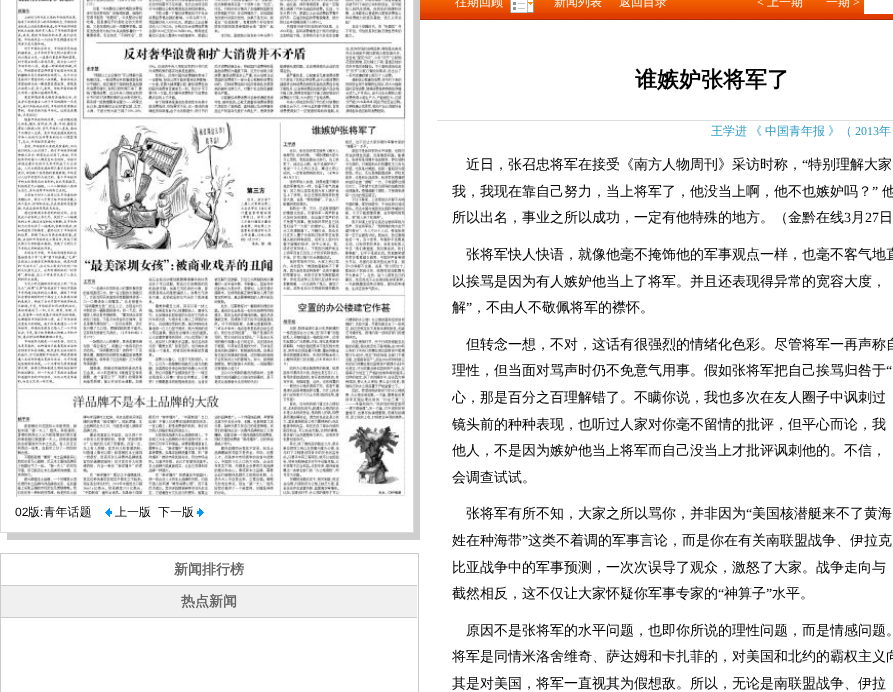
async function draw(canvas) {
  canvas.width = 893
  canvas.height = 692
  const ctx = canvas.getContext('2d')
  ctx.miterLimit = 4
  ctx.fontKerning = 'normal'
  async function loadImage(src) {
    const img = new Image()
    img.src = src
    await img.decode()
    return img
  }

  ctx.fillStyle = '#fff'
  ctx.fillRect(0, 0, 893, 692)
  ctx.drawImage(await loadImage('image0.png'), 0, 0, 420, 540)
  ctx.drawImage(await loadImage('image1.png'), 16, 0, 390, 497)
  ctx.font = '12px Liberation Sans'
  ctx.fillStyle = '#000'
  ctx.fillText('02', 15, 516)
  ctx.font = '500 12px WenQuanYi Zen Hei'
  ctx.fillText('版 青年话题', 28, 516)
  ctx.drawImage(await loadImage('image2.png'), 105, 508, 7, 9)
  ctx.fillText('上一版', 115, 516)
  ctx.fillText('下一版', 158, 516)
  ctx.drawImage(await loadImage('image3.png'), 197, 508, 7, 9)
  ctx.font = '12px Liberation Sans'
  ctx.fillText(':', 40, 516)
  ctx.strokeStyle = '#ccc'
  ctx.strokeRect(0.5, 553.5, 418, 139)
  ctx.fillStyle = '#ccc'
  ctx.fillRect(1, 585, 416, 1)
  ctx.font = 'bold 14px WenQuanYi Zen Hei'
  ctx.fillStyle = '#666'
  ctx.fillText('新闻排行榜', 174, 574)
  ctx.fillStyle = '#f0f0f0'
  ctx.fillRect(1, 586, 416, 31)
  ctx.fillStyle = '#ccc'
  ctx.fillRect(1, 617, 416, 1)
  ctx.fillStyle = '#666'
  ctx.fillText('热点新闻', 181, 606)
  ctx.drawImage(await loadImage('image5.png'), 420, 0, 473, 20)
  ctx.font = '500 12px WenQuanYi Zen Hei'
  ctx.fillStyle = '#fff'
  ctx.fillText('往期回顾', 455, 6)
  ctx.drawImage(await loadImage('image4.png'), 510, 0, 24, 13)
  ctx.fillText('新闻列表', 554, 6)
  ctx.fillText('返回目录', 619, 6)
  ctx.font = '12px Liberation Serif'
  ctx.fillText('<', 757, 6)
  ctx.font = '500 12px WenQuanYi Zen Hei'
  ctx.fillText('上一期', 767, 6)
  ctx.fillText('一期', 826, 6)
  ctx.font = '12px Liberation Serif'
  ctx.fillText('>', 853, 6)
  ctx.fillRect(864, 0, 29, 14)
  ctx.font = 'bold 22px WenQuanYi Zen Hei'
  ctx.fillStyle = '#000'
  ctx.fillText('谁嫉妒张将军了', 635, 87)
  ctx.fillStyle = '#dedede'
  ctx.fillRect(437, 120, 456, 1)
  ctx.font = '500 12px WenQuanYi Zen Hei'
  ctx.fillStyle = '#2e9bc6'
  ctx.fillText('王学进', 711, 135)
  ctx.fillText('《', 750, 135)
  ctx.fillText('中国青年报', 765, 135)
  ctx.fillText('》（', 828, 135)
  ctx.font = '12px Liberation Serif'
  ctx.fillText('2013', 855, 135)
  ctx.font = '500 12px WenQuanYi Zen Hei'
  ctx.fillText('年', 879, 135)
  ctx.font = '500 14px WenQuanYi Zen Hei'
  ctx.fillStyle = '#000'
  ctx.fillText('近日，张召忠将军在接受《南方人物周刊》采访时称，', 466, 169)
  ctx.font = '14px Liberation Serif'
  ctx.fillText('“', 802, 169)
  ctx.font = '500 14px WenQuanYi Zen Hei'
  ctx.fillText('特别理解大家', 808, 169)
  ctx.fillText('我，我现在靠自己努力，当上将军了，他没当上啊，他不也嫉妒吗？', 452, 196)
  ctx.font = '14px Liberation Serif'
  ctx.fillText('”', 872, 196)
  ctx.font = '500 14px WenQuanYi Zen Hei'
  ctx.fillText('他', 882, 196)
  ctx.fillText('所以出名，事业之所以成功，一定有他特殊的地方。（金黔在线', 452, 222)
  ctx.font = '14px Liberation Serif'
  ctx.fillText('3', 844, 222)
  ctx.font = '500 14px WenQuanYi Zen Hei'
  ctx.fillText('月', 851, 222)
  ctx.font = '14px Liberation Serif'
  ctx.fillText('27', 865, 222)
  ctx.font = '500 14px WenQuanYi Zen Hei'
  ctx.fillText('日', 879, 222)
  ctx.fillText('张将军快人快语，就像他毫不掩饰他的军事观点一样，也毫不客气地直', 466, 259)
  ctx.fillText('以挨骂是因为有人嫉妒他当上了将军。并且还表现得异常的宽容大度，', 452, 286)
  ctx.fillText('解', 452, 312)
  ctx.font = '14px Liberation Serif'
  ctx.fillText('”', 466, 312)
  ctx.font = '500 14px WenQuanYi Zen Hei'
  ctx.fillText('，不由人不敬佩将军的襟怀。', 472, 312)
  ctx.fillText('但转念一想，不对，这话有很强烈的情绪化色彩。尽管将军一再声称自', 466, 349)
  ctx.fillText('理性，但当面对骂声时仍不免意气用事。假如张将军把自己挨骂归咎于', 452, 375)
  ctx.font = '14px Liberation Serif'
  ctx.fillText('“', 886, 375)
  ctx.font = '500 14px WenQuanYi Zen Hei'
  ctx.fillText('心，那是百分之百理解错了。不瞒你说，我也多次在友人圈子中讽刺过', 452, 402)
  ctx.fillText('镜头前的种种表现，也听过人家对你毫不留情的批评，但平心而论，我', 452, 429)
  ctx.fillText('他人，不是因为嫉妒他当上将军而自己没当上才批评讽刺他的。不信，', 452, 455)
  ctx.fillText('会调查试试。', 452, 482)
  ctx.fillText('张将军有所不知，大家之所以骂你，并非因为', 466, 518)
  ctx.font = '14px Liberation Serif'
  ctx.fillText('“', 746, 518)
  ctx.font = '500 14px WenQuanYi Zen Hei'
  ctx.fillText('美国核潜艇来不了黄海', 752, 518)
  ctx.fillText('姓在种海带', 452, 545)
  ctx.font = '14px Liberation Serif'
  ctx.fillText('”', 522, 545)
  ctx.font = '500 14px WenQuanYi Zen Hei'
  ctx.fillText('这类不着调的军事言论，而是你在有关南联盟战争、伊拉克', 528, 545)
  ctx.fillText('比亚战争中的军事预测，一次次误导了观众，激怒了大家。战争走向与', 452, 572)
  ctx.fillText('截然相反，这不仅让大家怀疑你军事专家的', 452, 598)
  ctx.font = '14px Liberation Serif'
  ctx.fillText('“', 718, 598)
  ctx.font = '500 14px WenQuanYi Zen Hei'
  ctx.fillText('神算子', 724, 598)
  ctx.font = '14px Liberation Serif'
  ctx.fillText('”', 766, 598)
  ctx.font = '500 14px WenQuanYi Zen Hei'
  ctx.fillText('水平。', 772, 598)
  ctx.fillText('原因不是张将军的水平问题，也即你所说的理性问题，而是情感问题。', 466, 635)
  ctx.fillText('将军是同情米洛舍维奇、萨达姆和卡扎菲的，对美国和北约的霸权主义向', 452, 661)
  ctx.fillText('其是对美国，将军一直视其为假想敌。所以，无论是南联盟战争、伊拉', 452, 688)
}

draw(document.querySelector('canvas'))
